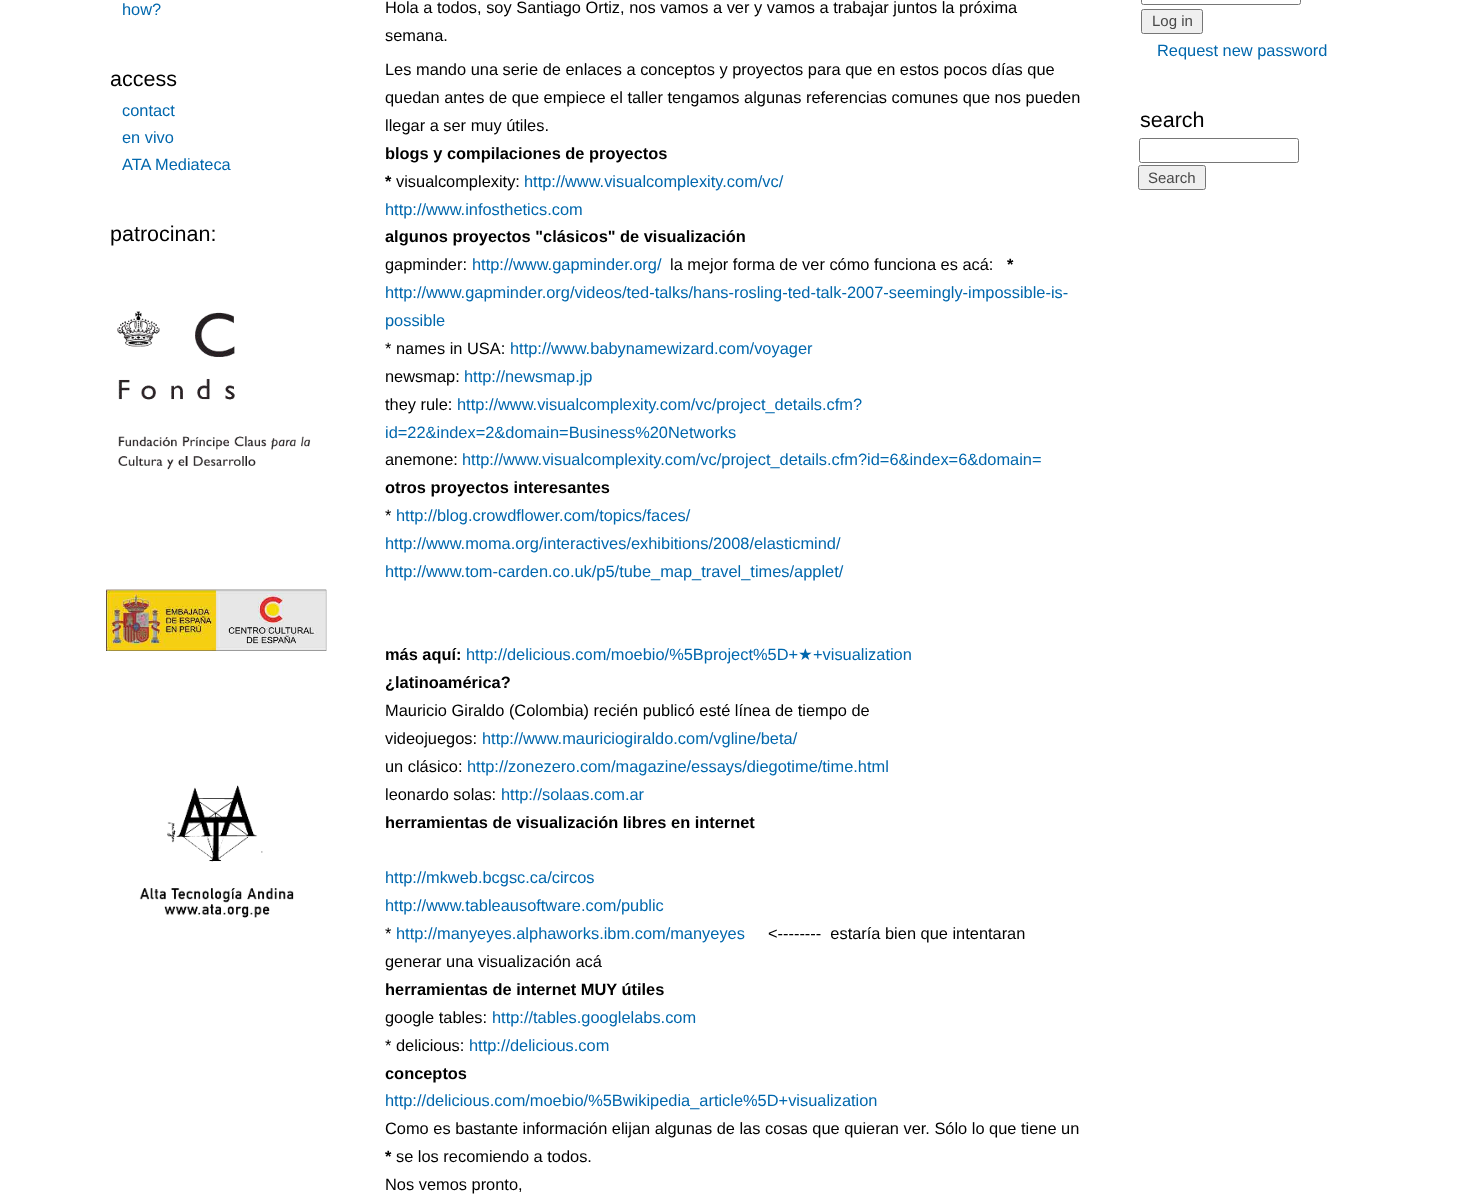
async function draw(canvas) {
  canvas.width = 1473
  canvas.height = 1199
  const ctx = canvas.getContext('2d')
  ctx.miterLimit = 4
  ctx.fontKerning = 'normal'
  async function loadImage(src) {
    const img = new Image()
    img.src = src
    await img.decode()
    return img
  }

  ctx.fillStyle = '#fff'
  ctx.fillRect(0, 0, 1473, 1199)
  ctx.font = '16.4px Liberation Sans'
  ctx.fillStyle = '#0067ad'
  ctx.fillText('how?', 122, 15)
  ctx.font = '21.5px Liberation Sans'
  ctx.fillStyle = '#000'
  ctx.fillText('access', 110, 86)
  ctx.font = '16.4px Liberation Sans'
  ctx.fillStyle = '#0067ad'
  ctx.fillText('contact', 122, 116)
  ctx.fillText('en vivo', 122, 143)
  ctx.fillText('ATA Mediateca', 122, 170)
  ctx.font = '21.5px Liberation Sans'
  ctx.fillStyle = '#000'
  ctx.fillText('patrocinan:', 110, 241)
  ctx.drawImage(await loadImage('image0.png'), 117, 311, 194, 159)
  ctx.drawImage(await loadImage('image1.png'), 106, 589, 221, 62)
  ctx.drawImage(await loadImage('image2.png'), 139, 785, 155, 133)
  ctx.font = '16.4px Liberation Sans'
  ctx.fillText('Hola a todos, soy Santiago Ortiz, nos vamos a ver y vamos a trabajar juntos la próxima', 385, 13)
  ctx.fillText('semana.', 385, 41)
  ctx.fillText('Les mando una serie de enlaces a conceptos y proyectos para que en estos pocos días que', 385, 75)
  ctx.fillText('quedan antes de que empiece el taller tengamos algunas referencias comunes que nos pueden', 385, 103)
  ctx.fillText('llegar a ser muy útiles.', 385, 131)
  ctx.font = 'bold 16.4px Liberation Sans'
  ctx.fillText('blogs y compilaciones de proyectos', 385, 159)
  ctx.fillText('*', 385, 187)
  ctx.font = '16.4px Liberation Sans'
  ctx.fillText('visualcomplexity:', 396, 187)
  ctx.fillStyle = '#0067ad'
  ctx.fillText('http://www.visualcomplexity.com/vc/', 524, 187)
  ctx.fillText('http://www.infosthetics.com', 385, 215)
  ctx.font = 'bold 16.4px Liberation Sans'
  ctx.fillStyle = '#000'
  ctx.fillText('algunos proyectos "clásicos" de visualización', 385, 242)
  ctx.font = '16.4px Liberation Sans'
  ctx.fillText('gapminder:', 385, 270)
  ctx.fillStyle = '#0067ad'
  ctx.fillText('http://www.gapminder.org/', 472, 270)
  ctx.fillStyle = '#000'
  ctx.fillText('la mejor forma de ver cómo funciona es acá:', 670, 270)
  ctx.font = 'bold 16.4px Liberation Sans'
  ctx.fillText('*', 1007, 270)
  ctx.font = '16.4px Liberation Sans'
  ctx.fillStyle = '#0067ad'
  ctx.fillText('http://www.gapminder.org/videos/ted-talks/hans-rosling-ted-talk-2007-seemingly-impossible-is-', 385, 298)
  ctx.fillText('possible', 385, 326)
  ctx.fillStyle = '#000'
  ctx.fillText('* names in USA:', 385, 354)
  ctx.fillStyle = '#0067ad'
  ctx.fillText('http://www.babynamewizard.com/voyager', 510, 354)
  ctx.fillStyle = '#000'
  ctx.fillText('newsmap:', 385, 382)
  ctx.fillStyle = '#0067ad'
  ctx.fillText('http://newsmap.jp', 464, 382)
  ctx.fillStyle = '#000'
  ctx.fillText('they rule:', 385, 410)
  ctx.fillStyle = '#0067ad'
  ctx.fillText('http://www.visualcomplexity.com/vc/project_details.cfm?', 457, 410)
  ctx.fillText('id=22&index=2&domain=Business%20Networks', 385, 438)
  ctx.fillStyle = '#000'
  ctx.fillText('anemone:', 385, 465)
  ctx.fillStyle = '#0067ad'
  ctx.fillText('http://www.visualcomplexity.com/vc/project_details.cfm?id=6&index=6&domain=', 462, 465)
  ctx.font = 'bold 16.4px Liberation Sans'
  ctx.fillStyle = '#000'
  ctx.fillText('otros proyectos interesantes', 385, 493)
  ctx.font = '16.4px Liberation Sans'
  ctx.fillText('*', 385, 521)
  ctx.fillStyle = '#0067ad'
  ctx.fillText('http://blog.crowdflower.com/topics/faces/', 396, 521)
  ctx.fillText('http://www.moma.org/interactives/exhibitions/2008/elasticmind/', 385, 549)
  ctx.fillText('http://www.tom-carden.co.uk/p5/tube_map_travel_times/applet/', 385, 577)
  ctx.font = 'bold 16.4px Liberation Sans'
  ctx.fillStyle = '#000'
  ctx.fillText('más aquí:', 385, 660)
  ctx.font = '16.4px Liberation Sans'
  ctx.fillStyle = '#0067ad'
  ctx.fillText('http://delicious.com/moebio/%5Bproject%5D+', 466, 660)
  ctx.font = '16.4px DejaVu Sans'
  ctx.fillText('★', 798, 660)
  ctx.font = '16.4px Liberation Sans'
  ctx.fillText('+visualization', 813, 660)
  ctx.font = 'bold 16.4px Liberation Sans'
  ctx.fillStyle = '#000'
  ctx.fillText('¿latinoamérica?', 385, 688)
  ctx.font = '16.4px Liberation Sans'
  ctx.fillText('Mauricio Giraldo (Colombia) recién publicó esté línea de tiempo de', 385, 716)
  ctx.fillText('videojuegos:', 385, 744)
  ctx.fillStyle = '#0067ad'
  ctx.fillText('http://www.mauriciogiraldo.com/vgline/beta/', 482, 744)
  ctx.fillStyle = '#000'
  ctx.fillText('un clásico:', 385, 772)
  ctx.fillStyle = '#0067ad'
  ctx.fillText('http://zonezero.com/magazine/essays/diegotime/time.html', 467, 772)
  ctx.fillStyle = '#000'
  ctx.fillText('leonardo solas:', 385, 800)
  ctx.fillStyle = '#0067ad'
  ctx.fillText('http://solaas.com.ar', 501, 800)
  ctx.font = 'bold 16.4px Liberation Sans'
  ctx.fillStyle = '#000'
  ctx.fillText('herramientas de visualización libres en internet', 385, 828)
  ctx.font = '16.4px Liberation Sans'
  ctx.fillStyle = '#0067ad'
  ctx.fillText('http://mkweb.bcgsc.ca/circos', 385, 883)
  ctx.fillText('http://www.tableausoftware.com/public', 385, 911)
  ctx.fillStyle = '#000'
  ctx.fillText('*', 385, 939)
  ctx.fillStyle = '#0067ad'
  ctx.fillText('http://manyeyes.alphaworks.ibm.com/manyeyes', 396, 939)
  ctx.fillStyle = '#000'
  ctx.fillText('<--------  estaría bien que intentaran', 768, 939)
  ctx.fillText('generar una visualización acá', 385, 967)
  ctx.font = 'bold 16.4px Liberation Sans'
  ctx.fillText('herramientas de internet MUY útiles', 385, 995)
  ctx.font = '16.4px Liberation Sans'
  ctx.fillText('google tables:', 385, 1023)
  ctx.fillStyle = '#0067ad'
  ctx.fillText('http://tables.googlelabs.com', 492, 1023)
  ctx.fillStyle = '#000'
  ctx.fillText('* delicious:', 385, 1051)
  ctx.fillStyle = '#0067ad'
  ctx.fillText('http://delicious.com', 469, 1051)
  ctx.font = 'bold 16.4px Liberation Sans'
  ctx.fillStyle = '#000'
  ctx.fillText('conceptos', 385, 1079)
  ctx.font = '16.4px Liberation Sans'
  ctx.fillStyle = '#0067ad'
  ctx.fillText('http://delicious.com/moebio/%5Bwikipedia_article%5D+visualization', 385, 1106)
  ctx.fillStyle = '#000'
  ctx.fillText('Como es bastante información elijan algunas de las cosas que quieran ver. Sólo lo que tiene un', 385, 1134)
  ctx.font = 'bold 16.4px Liberation Sans'
  ctx.fillText('*', 385, 1162)
  ctx.font = '16.4px Liberation Sans'
  ctx.fillText('se los recomiendo a todos.', 396, 1162)
  ctx.fillText('Nos vemos pronto,', 385, 1190)
  ctx.beginPath()
  ctx.roundRect(1141.5, -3.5, 159, 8, 2)
  ctx.strokeStyle = '#767676'
  ctx.stroke()
  ctx.fillStyle = '#efefef'
  ctx.beginPath()
  ctx.roundRect(1141.5, 9.5, 61, 24, 2)
  ctx.fill()
  ctx.stroke()
  ctx.font = '15px Liberation Sans'
  ctx.fillStyle = '#494949'
  ctx.fillText('Log in', 1152, 26)
  ctx.font = '16.4px Liberation Sans'
  ctx.fillStyle = '#0067ad'
  ctx.fillText('Request new password', 1157, 56)
  ctx.font = '21.5px Liberation Sans'
  ctx.fillStyle = '#000'
  ctx.fillText('search', 1140, 127)
  ctx.beginPath()
  ctx.roundRect(1139.5, 138.5, 159, 24, 2)
  ctx.stroke()
  ctx.fillStyle = '#efefef'
  ctx.beginPath()
  ctx.roundRect(1138.5, 165.5, 67, 24, 2)
  ctx.fill()
  ctx.stroke()
  ctx.font = '15px Liberation Sans'
  ctx.fillStyle = '#494949'
  ctx.fillText('Search', 1148, 183)
}

draw(document.querySelector('canvas'))
